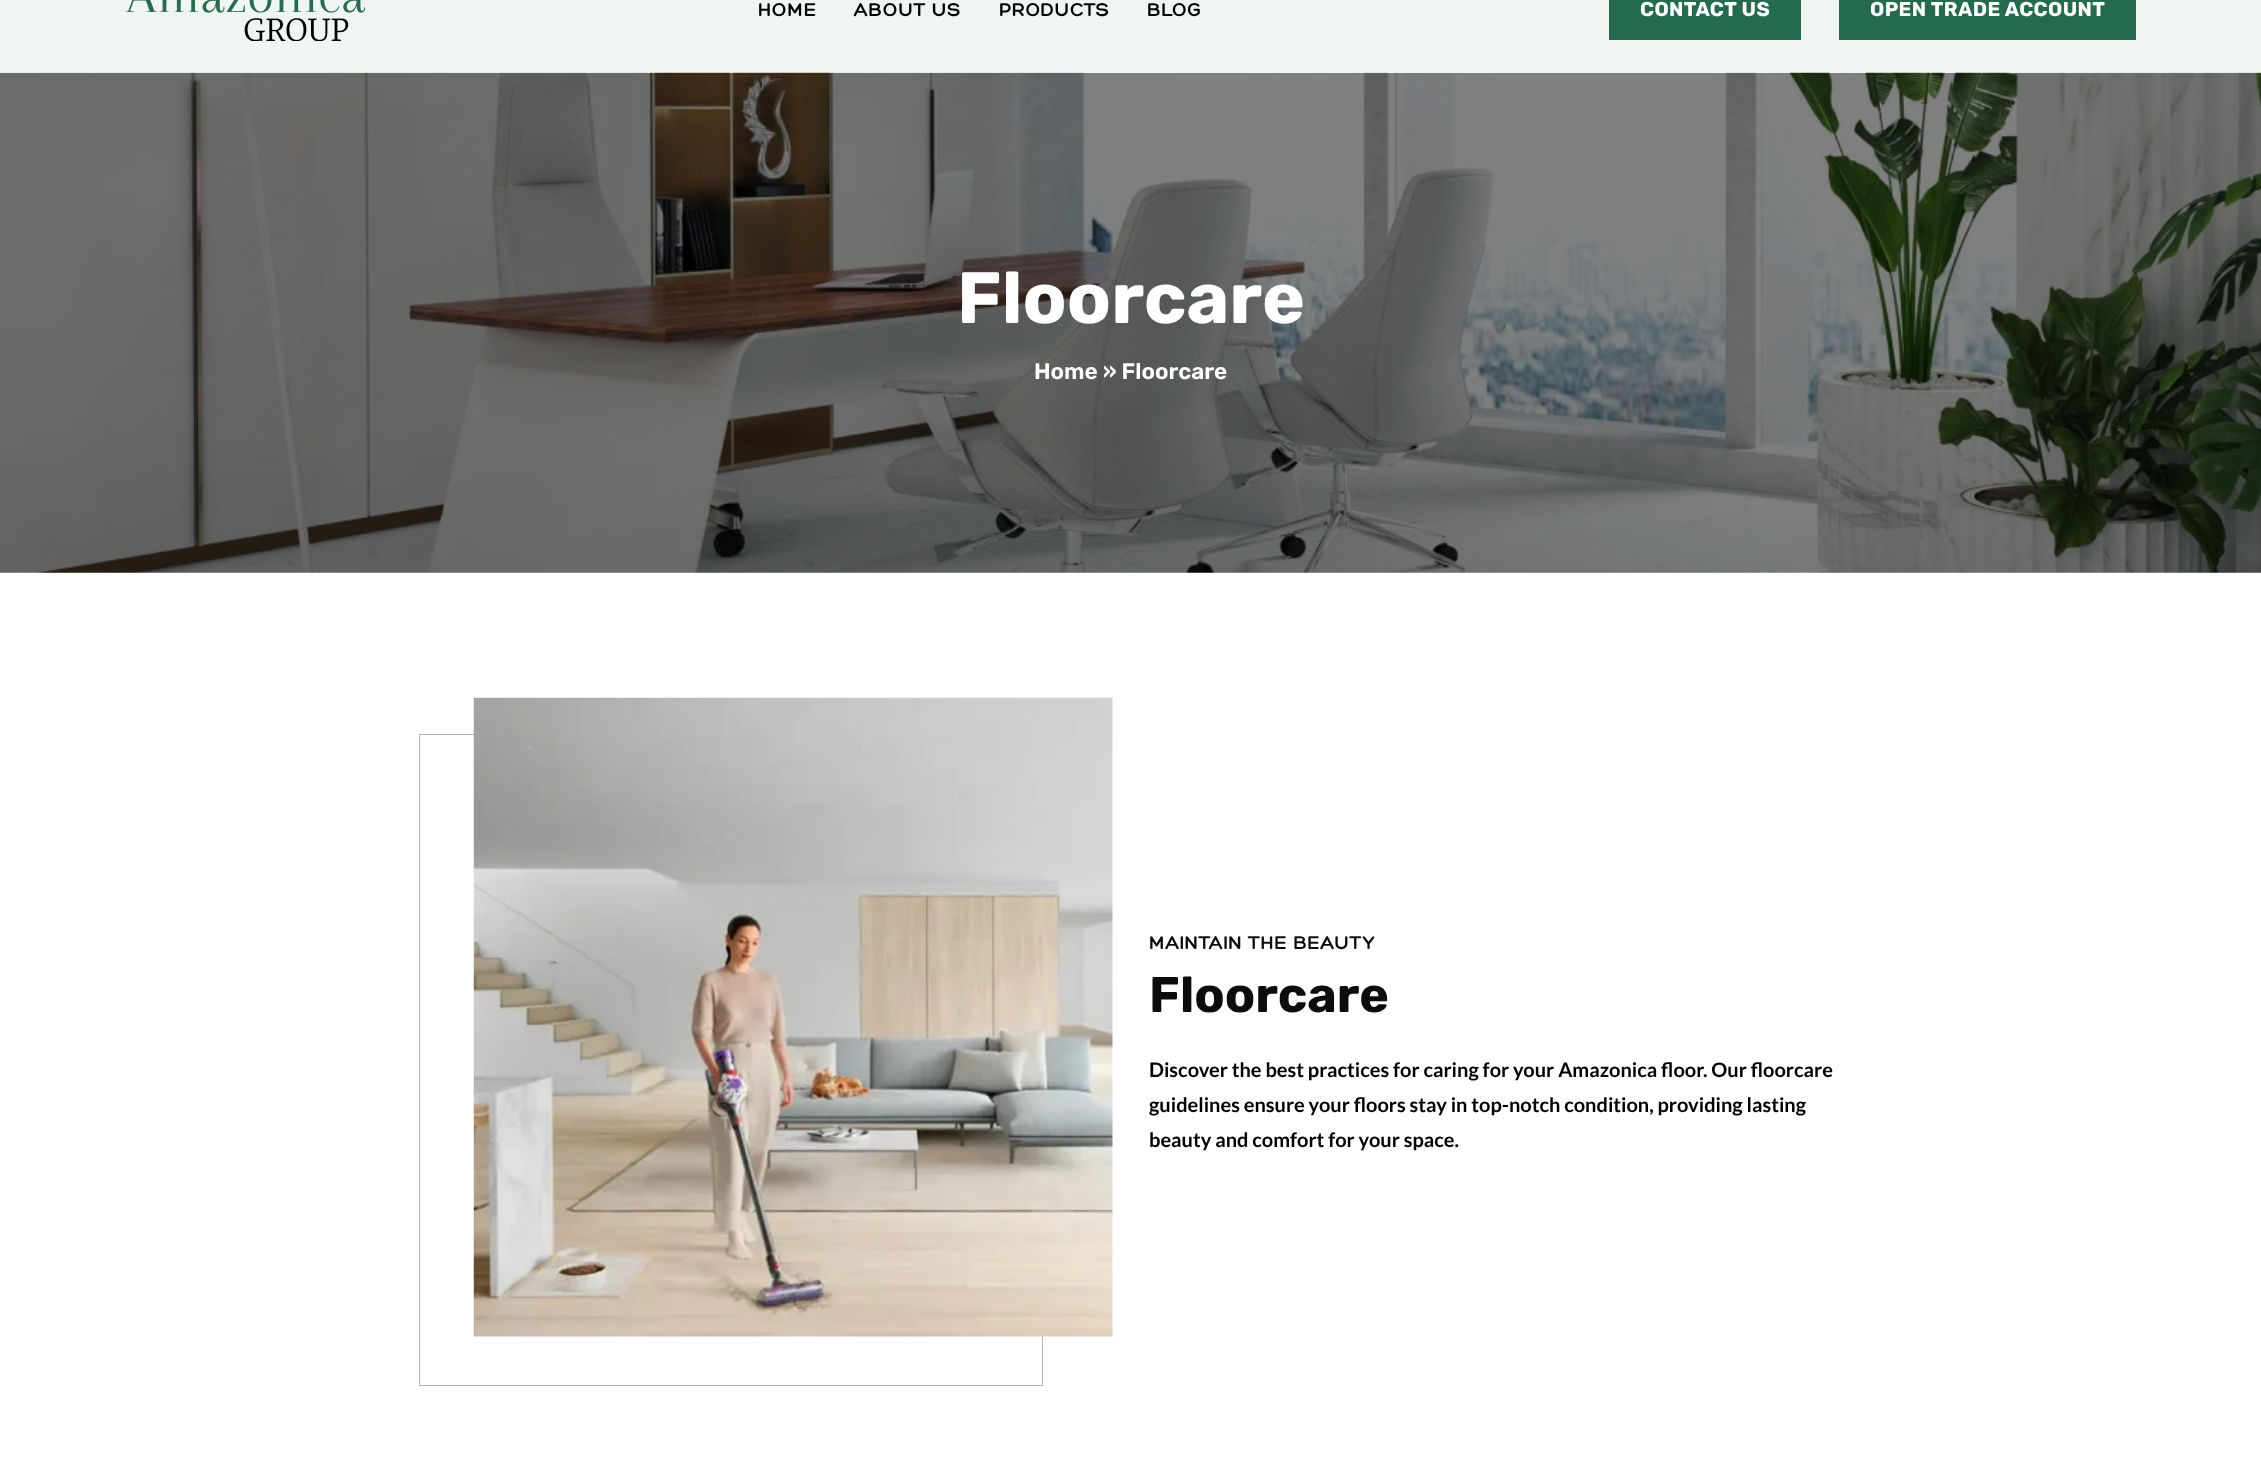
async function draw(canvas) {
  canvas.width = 2261
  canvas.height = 1474
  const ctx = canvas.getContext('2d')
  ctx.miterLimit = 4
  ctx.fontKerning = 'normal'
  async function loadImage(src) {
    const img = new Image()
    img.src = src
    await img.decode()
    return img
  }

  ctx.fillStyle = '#fff'
  ctx.fillRect(0, 0, 2261, 1474)
  ctx.fillStyle = '#eef5f2'
  ctx.fillRect(0, 0, 2261, 73)
  ctx.drawImage(await loadImage('image0.png'), 125, 0, 241, 41)
  ctx.letterSpacing = '0.4px'
  ctx.font = 'bold 20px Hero'
  ctx.fillStyle = '#000'
  ctx.fillText('HOME', 758, 16)
  ctx.fillText('ABOUT US', 854, 16)
  ctx.fillText('PRODUCTS', 999, 16)
  ctx.fillText('BLOG', 1147, 16)
  ctx.fillStyle = '#266a4d'
  ctx.fillRect(1609, 0, 192, 40)
  ctx.font = 'bold 20px Rubik'
  ctx.fillStyle = '#fff'
  ctx.fillText('CONTACT US', 1640, 16)
  ctx.fillStyle = '#266a4d'
  ctx.fillRect(1839, 0, 297, 40)
  ctx.fillStyle = '#fff'
  ctx.fillText('OPEN TRADE ACCOUNT', 1870, 16)
  ctx.drawImage(await loadImage('image1.png'), 0, 72, 2261, 501)
  ctx.letterSpacing = '0px'
  ctx.font = 'bold 72.5px Rubik'
  ctx.fillText('Floorcare', 957, 323)
  ctx.font = '600 22.5px Rubik'
  ctx.fillText('Home » Floorcare', 1034, 379)
  ctx.strokeStyle = '#b3b3b3'
  ctx.strokeRect(419.5, 734.5, 623, 651)
  ctx.drawImage(await loadImage('image2.png'), 473, 697, 640, 640)
  ctx.letterSpacing = '0.4px'
  ctx.font = 'bold 20px Hero'
  ctx.fillStyle = '#0c0c0c'
  ctx.fillText('MAINTAIN THE BEAUTY', 1149, 949)
  ctx.letterSpacing = '0px'
  ctx.font = 'bold 50px Rubik'
  ctx.fillText('Floorcare', 1149, 1012)
  ctx.font = 'bold 20px Lato'
  ctx.fillStyle = '#000'
  ctx.fillText('Discover the best practices for caring for your Amazonica floor. Our floorcare', 1149, 1077)
  ctx.fillText('guidelines ensure your floors stay in top-notch condition, providing lasting', 1149, 1112)
  ctx.fillText('beauty and comfort for your space.', 1149, 1147)
}

draw(document.querySelector('canvas'))
